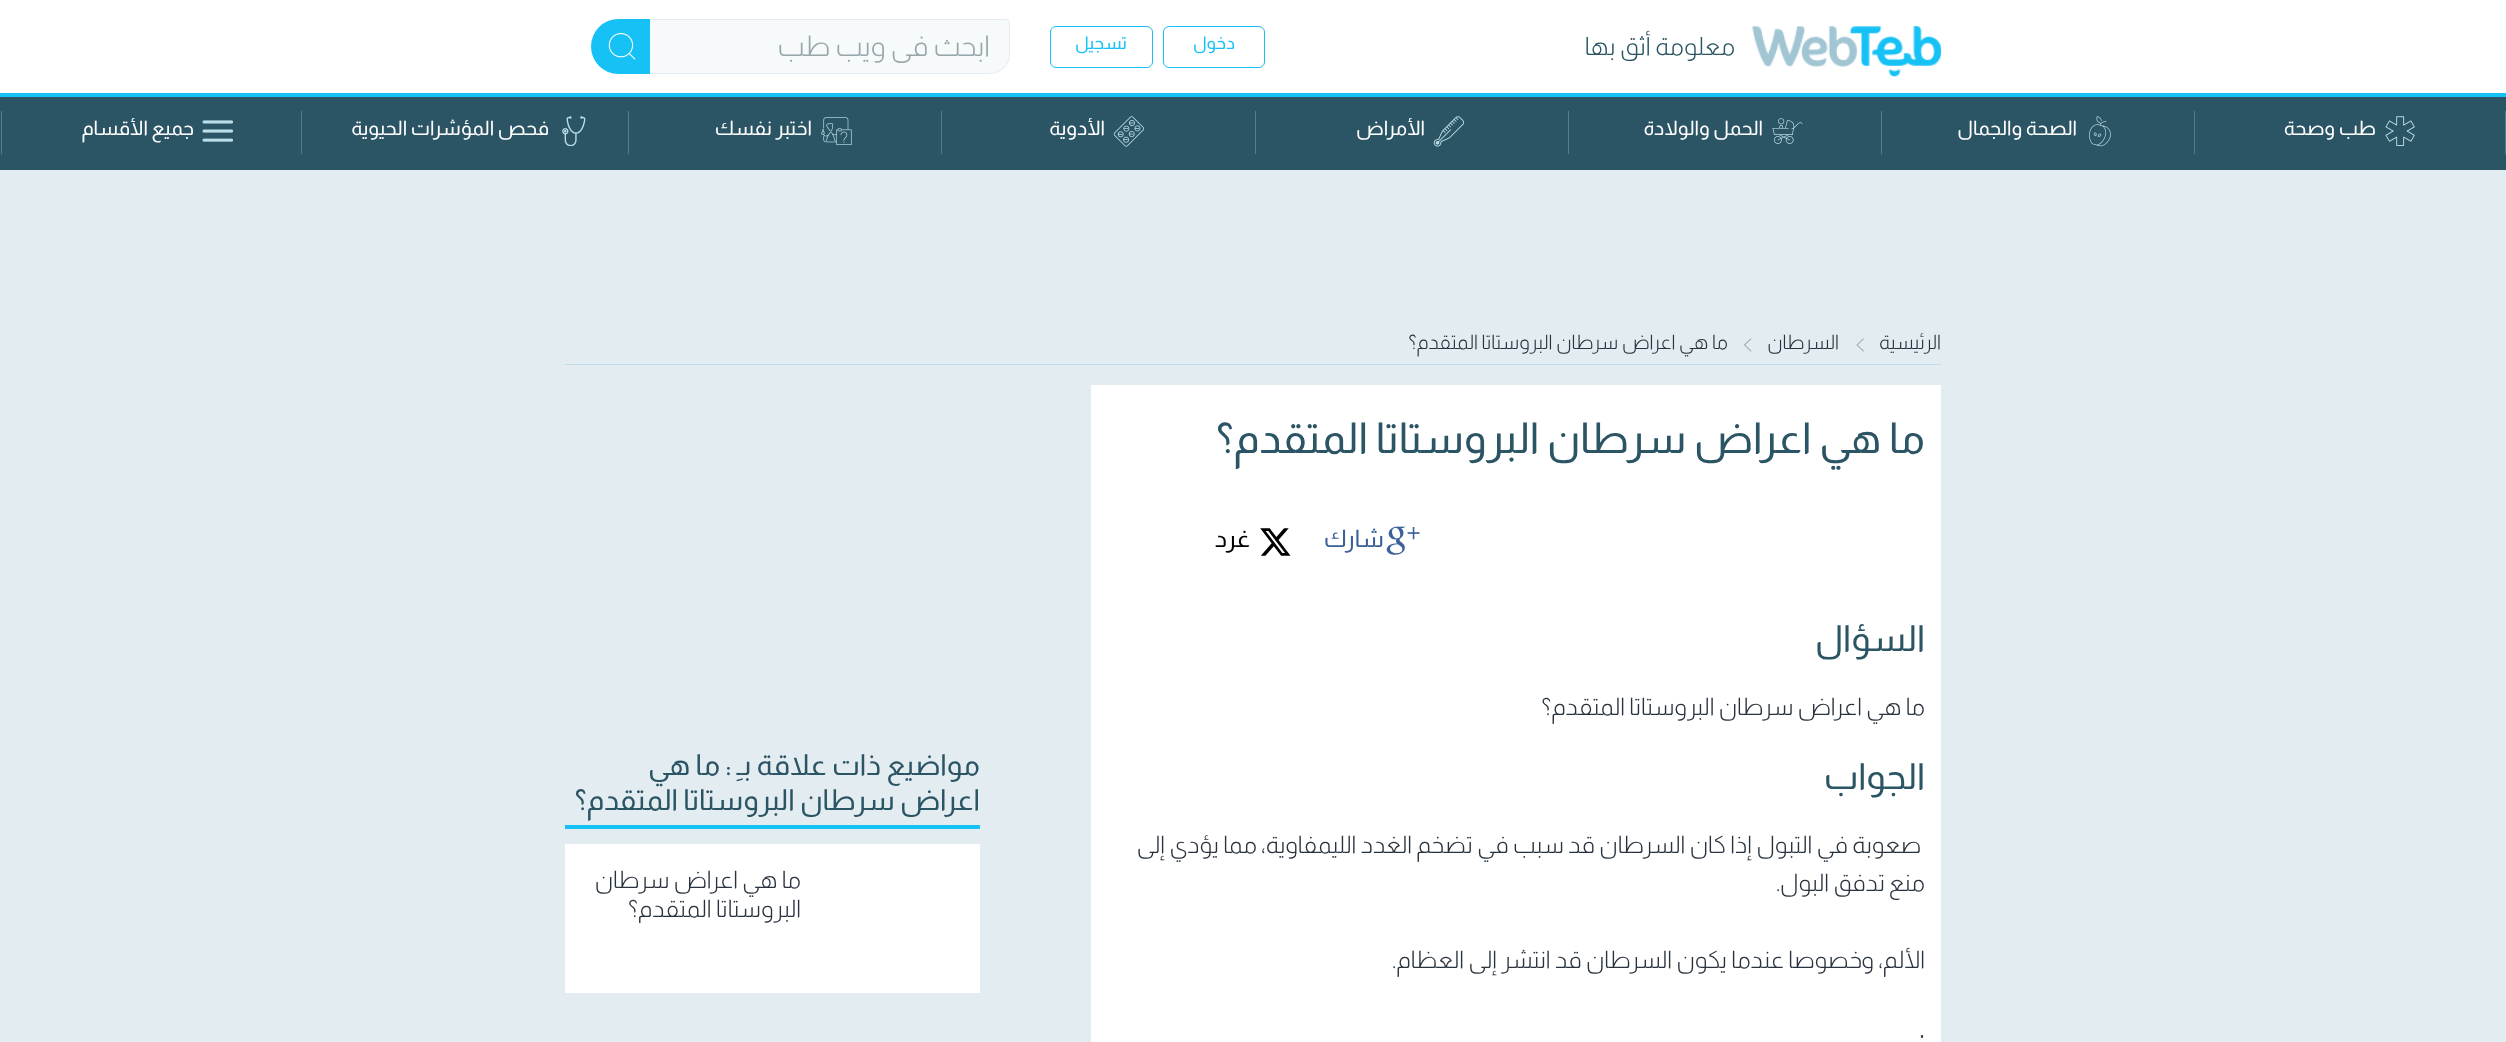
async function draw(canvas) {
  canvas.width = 2506
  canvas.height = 1042
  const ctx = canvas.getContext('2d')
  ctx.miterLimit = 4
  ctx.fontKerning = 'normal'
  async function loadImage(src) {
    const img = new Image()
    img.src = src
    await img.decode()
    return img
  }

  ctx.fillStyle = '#e3ecf0'
  ctx.fillRect(0, 0, 2506, 1042)
  ctx.fillStyle = '#fff'
  ctx.fillRect(0, 0, 2506, 93)
  ctx.fillStyle = '#16c1f5'
  ctx.fillRect(0, 93, 2506, 4)
  ctx.drawImage(await loadImage('image0.png'), 1752, 26, 190, 51)
  ctx.direction = 'rtl'
  ctx.font = '300 25px Almarai'
  ctx.fillStyle = '#2b5464'
  ctx.fillText('معلومة أثق بها', 1735, 55)
  ctx.beginPath()
  ctx.roundRect(1163.5, 26.5, 101, 41, 5.5)
  ctx.strokeStyle = '#16c1f5'
  ctx.stroke()
  ctx.font = '17.5px Almarai'
  ctx.fillStyle = '#16c1f5'
  ctx.fillText('دخول', 1235, 49)
  ctx.beginPath()
  ctx.roundRect(1050.5, 26.5, 102, 41, 5.5)
  ctx.stroke()
  ctx.fillText('تسجيل', 1127, 49)
  ctx.fillStyle = '#f7fafb'
  ctx.beginPath()
  ctx.roundRect(624.5, 19.5, 385, 54, [27, 3.5, 19.5, 27])
  ctx.fill()
  ctx.strokeStyle = '#e4eef2'
  ctx.stroke()
  ctx.save()
  ctx.beginPath()
  ctx.rect(635, 30, 355, 33)
  ctx.clip()
  ctx.font = '300 28.75px Almarai'
  ctx.fillStyle = '#96a6aa'
  ctx.fillText('ابحث في ويب طب', 990, 56)
  ctx.restore()
  ctx.fillStyle = '#16c1f5'
  ctx.beginPath()
  ctx.roundRect(591, 19, 59, 55, [27.5, 0, 0, 27.5])
  ctx.fill()
  ctx.drawImage(await loadImage('image1.png'), 608, 33, 28, 27)
  ctx.fillStyle = '#2b5464'
  ctx.fillRect(0, 97, 2506, 73)
  ctx.fillStyle = '#4e7d8d'
  ctx.fillRect(2505, 111, 1, 43)
  ctx.drawImage(await loadImage('image2.png'), 2385, 116, 30, 30)
  ctx.font = '20px Almarai'
  ctx.fillStyle = '#fff'
  ctx.fillText('طب وصحة', 2376, 135)
  ctx.fillStyle = '#4e7d8d'
  ctx.fillRect(2194, 111, 1, 43)
  ctx.drawImage(await loadImage('image3.png'), 2089, 116, 22, 31)
  ctx.fillStyle = '#fff'
  ctx.fillText('الصحة والجمال', 2077, 135)
  ctx.fillStyle = '#4e7d8d'
  ctx.fillRect(1881, 111, 1, 43)
  ctx.drawImage(await loadImage('image4.png'), 1772, 118, 31, 26)
  ctx.fillStyle = '#fff'
  ctx.fillText('الحمل والولادة', 1763, 135)
  ctx.fillStyle = '#4e7d8d'
  ctx.fillRect(1568, 111, 1, 43)
  ctx.drawImage(await loadImage('image5.png'), 1433, 116, 32, 31)
  ctx.fillStyle = '#fff'
  ctx.fillText('الأمراض', 1425, 135)
  ctx.fillStyle = '#4e7d8d'
  ctx.fillRect(1255, 111, 1, 43)
  ctx.drawImage(await loadImage('image6.png'), 1113, 116, 32, 31)
  ctx.fillStyle = '#fff'
  ctx.fillText('الأدوية', 1105, 135)
  ctx.fillStyle = '#4e7d8d'
  ctx.fillRect(941, 111, 1, 43)
  ctx.drawImage(await loadImage('image7.png'), 821, 117, 31, 28)
  ctx.fillStyle = '#fff'
  ctx.fillText('اختبر نفسك', 812, 135)
  ctx.fillStyle = '#4e7d8d'
  ctx.fillRect(628, 111, 1, 43)
  ctx.drawImage(await loadImage('image8.png'), 562, 116, 24, 30)
  ctx.fillStyle = '#fff'
  ctx.fillText('فحص المؤشرات الحيوية', 549, 135)
  ctx.fillStyle = '#4e7d8d'
  ctx.fillRect(301, 111, 1, 43)
  ctx.drawImage(await loadImage('image9.png'), 202, 120, 32, 22)
  ctx.fillStyle = '#fff'
  ctx.fillText('جميع الأقسام', 194, 135)
  ctx.fillStyle = '#4e7d8d'
  ctx.fillRect(1, 111, 1, 43)
  ctx.fillStyle = '#bcdee8'
  ctx.fillRect(565, 364, 1376, 1)
  ctx.font = '300 20px Almarai'
  ctx.fillStyle = '#29333f'
  ctx.fillText('الرئيسية', 1941, 349)
  ctx.drawImage(await loadImage('image10.png'), 1856, 338, 8, 14)
  ctx.fillText('السرطان', 1839, 349)
  ctx.drawImage(await loadImage('image11.png'), 1744, 338, 8, 14)
  ctx.fillText('ما هي اعراض سرطان البروستاتا المتقدم؟', 1728, 349)
  ctx.fillStyle = '#fff'
  ctx.fillRect(1091, 385, 850, 657)
  ctx.font = '42.6px Almarai'
  ctx.fillStyle = '#2b5464'
  ctx.fillText('ما هي اعراض سرطان البروستاتا المتقدم؟', 1925, 453)
  ctx.drawImage(await loadImage('image12.png'), 1386, 526, 34, 29)
  ctx.font = '24px Almarai'
  ctx.fillStyle = '#396098'
  ctx.fillText('شارك', 1384, 547)
  ctx.drawImage(await loadImage('image13.png'), 1260, 528, 31, 28)
  ctx.fillStyle = '#000'
  ctx.fillText('غرد', 1250, 547)
  ctx.font = '36px Almarai'
  ctx.fillStyle = '#2b5464'
  ctx.fillText('السؤال', 1925, 651)
  ctx.font = '300 24px Almarai'
  ctx.fillStyle = '#29333f'
  ctx.fillText('ما هي اعراض سرطان البروستاتا المتقدم؟', 1925, 715)
  ctx.font = '36px Almarai'
  ctx.fillStyle = '#2b5464'
  ctx.fillText('الجواب', 1925, 789)
  ctx.font = '300 24px Almarai'
  ctx.fillStyle = '#29333f'
  ctx.fillText('صعوبة في التبول', 1921, 853)
  ctx.fillText('إذا كان السرطان قد', 1752, 853)
  ctx.fillText('سبب في تضخم', 1564, 853)
  ctx.fillText('الغدد الليمفاوية', 1412, 853)
  ctx.direction = 'ltr'
  ctx.fillText('،', 1261, 853)
  ctx.direction = 'rtl'
  ctx.fillText('مما يؤدي إلى', 1257, 853)
  ctx.fillText('منع', 1925, 891)
  ctx.fillText('تدفق البول', 1885, 891)
  ctx.direction = 'ltr'
  ctx.fillText('.', 1776, 891)
  ctx.direction = 'rtl'
  ctx.fillText('الألم، و', 1925, 968)
  ctx.fillText('خصوصا عندما يكون', 1862, 968)
  ctx.fillText('السرطان قد انتشر', 1672, 968)
  ctx.fillText('إلى', 1497, 968)
  ctx.fillText('العظام.', 1464, 968)
  ctx.direction = 'ltr'
  ctx.fillText('·', 1919, 1045)
  ctx.fillStyle = '#16c1f5'
  ctx.fillRect(565, 825, 415, 4)
  ctx.direction = 'rtl'
  ctx.font = '29px Almarai'
  ctx.fillStyle = '#2b5464'
  ctx.fillText('مواضيع ذات علاقة بـِ : ما هي', 980, 775)
  ctx.fillText('اعراض سرطان البروستاتا المتقدم؟', 980, 810)
  ctx.fillStyle = '#fff'
  ctx.fillRect(565, 844, 415, 149)
  ctx.font = '300 24px Almarai'
  ctx.fillStyle = '#29333f'
  ctx.fillText('ما هي اعراض سرطان', 801, 888)
  ctx.save()
  ctx.beginPath()
  ctx.rect(579, 854, 222, 69)
  ctx.clip()
  ctx.fillText('البروستاتا المتقدم؟', 801, 917)
  ctx.restore()
}

draw(document.querySelector('canvas'))
